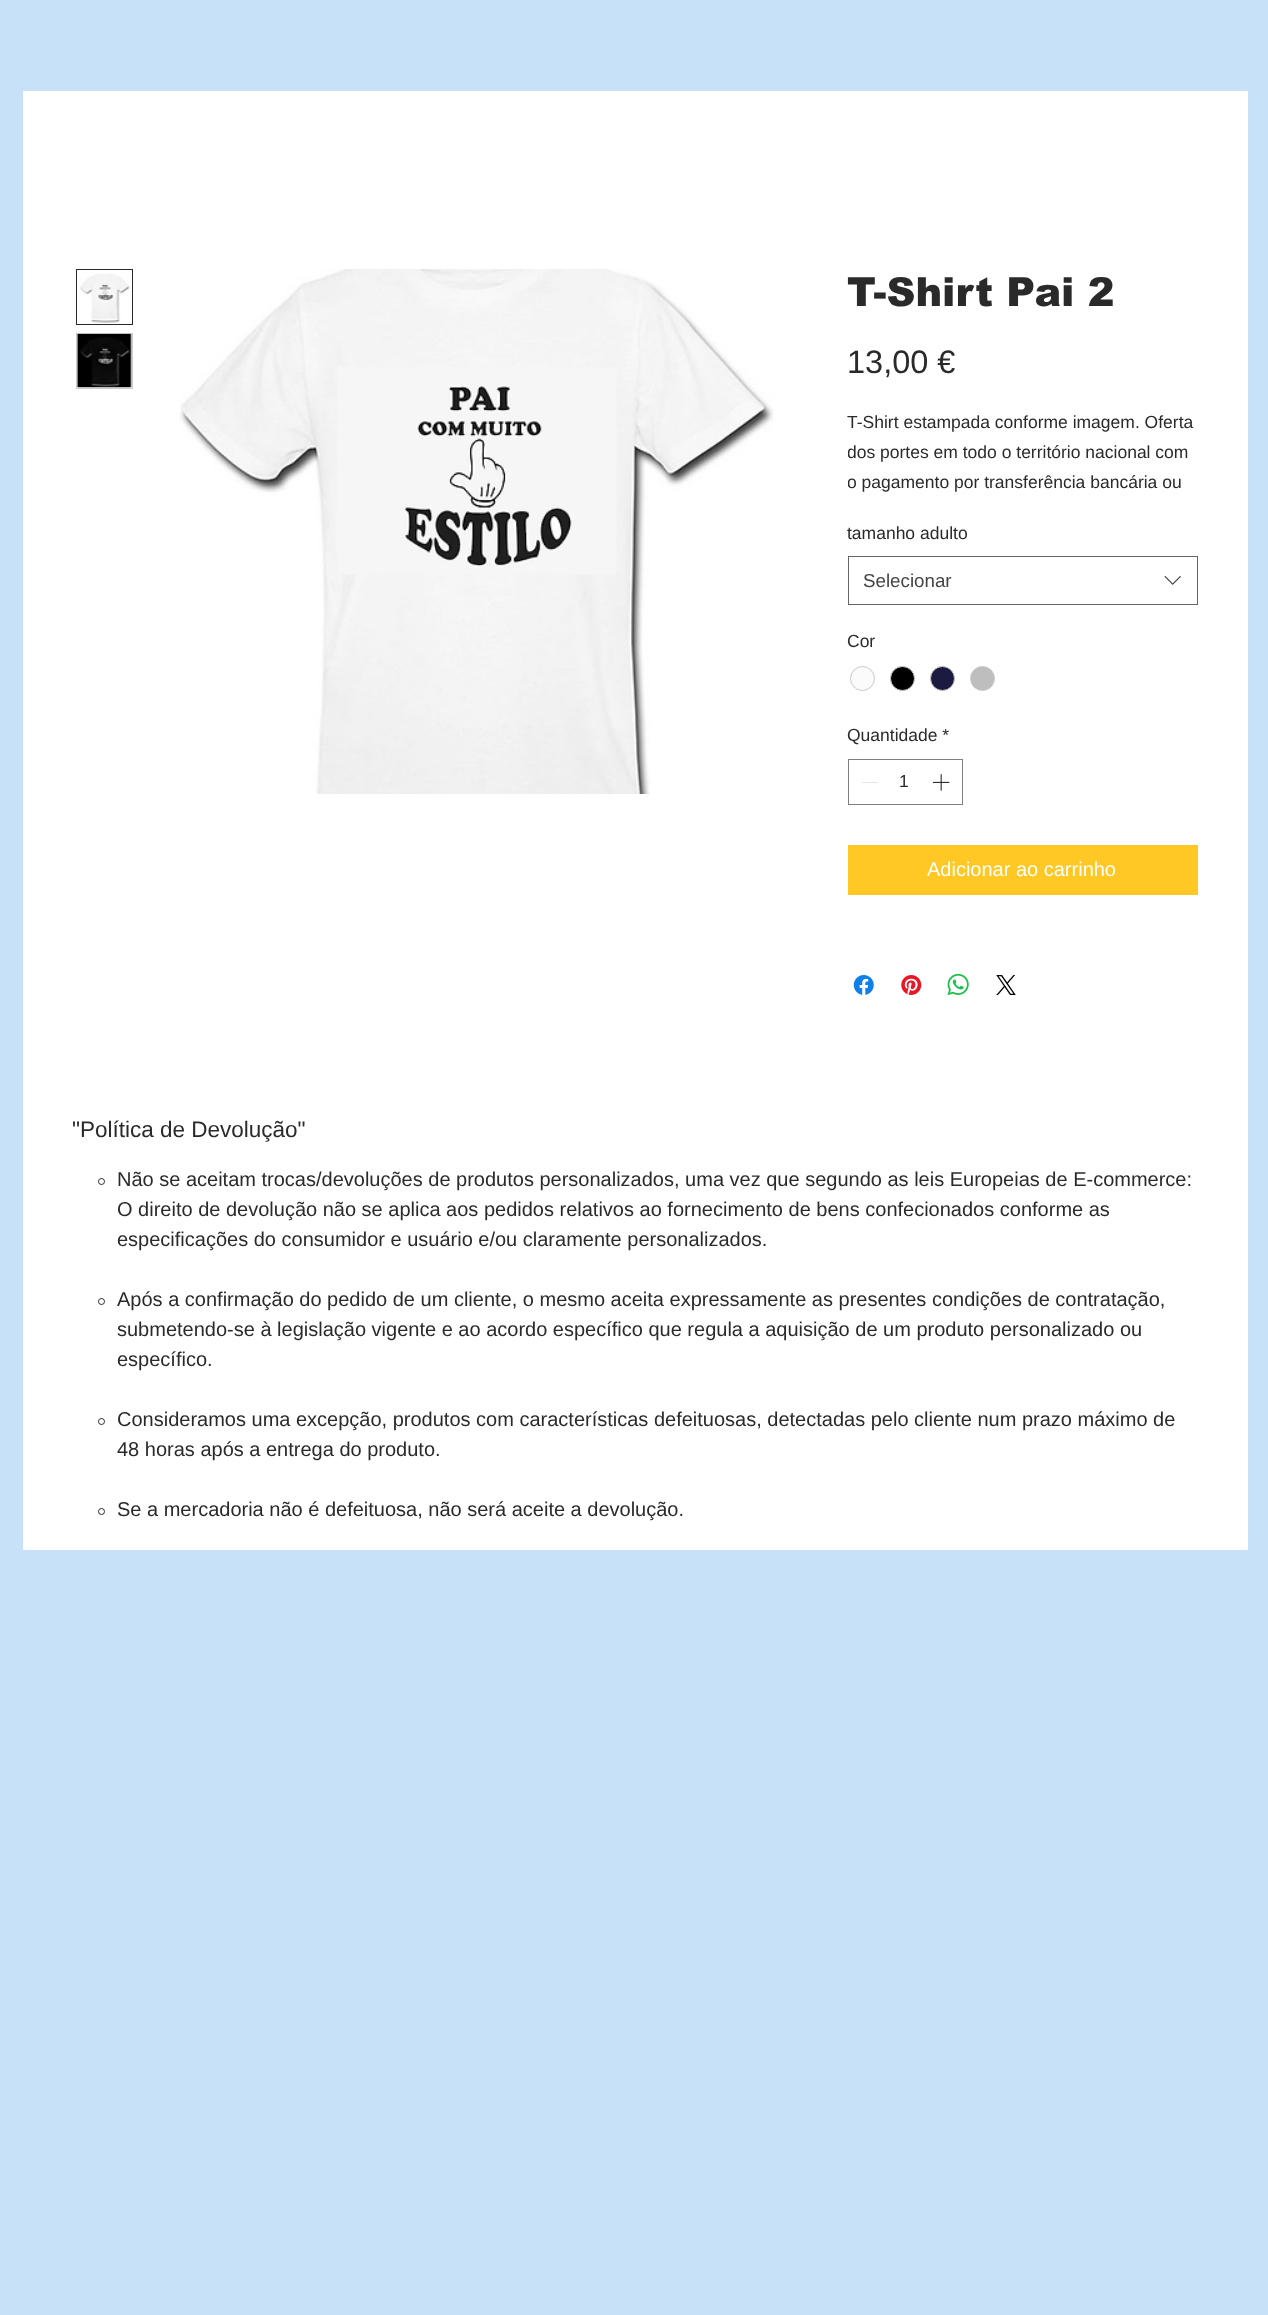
async function draw(canvas) {
  canvas.width = 1268
  canvas.height = 2315
  const ctx = canvas.getContext('2d')
  ctx.miterLimit = 4
  ctx.fontKerning = 'normal'
  async function loadImage(src) {
    const img = new Image()
    img.src = src
    await img.decode()
    return img
  }

  ctx.fillStyle = '#c7e2f8'
  ctx.fillRect(0, 0, 1268, 2315)
  ctx.fillStyle = '#fff'
  ctx.fillRect(23, 91, 1225, 1459)
  ctx.strokeStyle = '#2a2a2a'
  ctx.strokeRect(76.5, 269.5, 56, 55)
  ctx.drawImage(await loadImage('image0.png'), 79, 273, 51, 50)
  ctx.strokeStyle = '#ccc'
  ctx.strokeRect(76.5, 333.5, 56, 55)
  ctx.drawImage(await loadImage('image1.png'), 77, 333, 55, 55)
  ctx.drawImage(await loadImage('image2.png'), 179, 269, 595, 525)
  ctx.font = '900 40px arial'
  ctx.fillStyle = '#2a2a2a'
  ctx.fillText('T-Shirt Pai 2', 847, 306)
  ctx.font = '32.5px Liberation Sans'
  ctx.fillText('13,00 €', 847, 373)
  ctx.font = '17.5px Liberation Sans'
  ctx.fillText('T-Shirt estampada conforme imagem. Oferta', 847, 428)
  ctx.save()
  ctx.beginPath()
  ctx.rect(848, 406, 350, 90)
  ctx.clip()
  ctx.fillText('dos portes em todo o território nacional com', 847, 458)
  ctx.fillText('o pagamento por transferência bancária ou', 847, 488)
  ctx.restore()
  ctx.fillText('tamanho adulto', 847, 539)
  ctx.strokeStyle = '#666'
  ctx.strokeRect(848.5, 556.5, 349, 48)
  ctx.font = '18.75px Liberation Sans'
  ctx.fillStyle = '#444'
  ctx.fillText('Selecionar', 863, 587)
  ctx.drawImage(await loadImage('image3.png'), 1164, 575, 17, 10)
  ctx.font = '17.5px Liberation Sans'
  ctx.fillStyle = '#2a2a2a'
  ctx.fillText('Cor', 847, 647)
  ctx.fillStyle = '#fbfbfb'
  ctx.beginPath()
  ctx.arc(862.5, 678.5, 12, 0, 2 * Math.PI)
  ctx.fill()
  ctx.strokeStyle = '#c9c9c9'
  ctx.stroke()
  ctx.fillStyle = '#000'
  ctx.beginPath()
  ctx.arc(902.5, 678.5, 12, 0, 2 * Math.PI)
  ctx.fill()
  ctx.stroke()
  ctx.fillStyle = '#1b1b41'
  ctx.beginPath()
  ctx.arc(942.5, 678.5, 12, 0, 2 * Math.PI)
  ctx.fill()
  ctx.stroke()
  ctx.fillStyle = '#bebebe'
  ctx.beginPath()
  ctx.arc(982.5, 678.5, 12, 0, 2 * Math.PI)
  ctx.fill()
  ctx.stroke()
  ctx.fillStyle = '#2a2a2a'
  ctx.fillText('Quantidade *', 847, 741)
  ctx.strokeStyle = '#7f7f7f'
  ctx.strokeRect(848.5, 759.5, 114, 45)
  ctx.fillStyle = '#e3e3e3'
  ctx.fillRect(862, 782, 16, 1)
  ctx.fillStyle = '#2a2a2a'
  ctx.fillText('1', 899, 787)
  ctx.drawImage(await loadImage('image4.png'), 932, 774, 18, 17)
  ctx.fillStyle = '#ffc824'
  ctx.fillRect(848, 845, 350, 50)
  ctx.font = '20px Liberation Sans'
  ctx.fillStyle = '#fff'
  ctx.fillText('Adicionar ao carrinho', 927, 876)
  ctx.drawImage(await loadImage('image5.png'), 853, 975, 21, 20)
  ctx.drawImage(await loadImage('image6.png'), 901, 975, 21, 20)
  ctx.drawImage(await loadImage('image7.png'), 947, 973, 22, 23)
  ctx.drawImage(await loadImage('image8.png'), 996, 975, 20, 20)
  ctx.save()
  ctx.beginPath()
  ctx.rect(73, 1115, 1125, 410)
  ctx.clip()
  ctx.font = '22.5px Liberation Sans'
  ctx.fillStyle = '#2a2a2a'
  ctx.fillText('"Política de Devolução"', 72, 1137)
  ctx.restore()
  ctx.beginPath()
  ctx.arc(101.5, 1181.5, 3, 0, 2 * Math.PI)
  ctx.strokeStyle = '#2a2a2a'
  ctx.stroke()
  ctx.fillStyle = '#2a2a2a'
  ctx.fillText('Não se aceitam trocas/devoluções de produtos personalizados, uma vez que segundo as leis Europeias de E-commerce:', 117, 1186)
  ctx.fillText('O direito de devolução não se aplica aos pedidos relativos ao fornecimento de bens confecionados conforme as', 117, 1216)
  ctx.fillText('especificações do consumidor e usuário e/ou claramente personalizados.', 117, 1246)
  ctx.beginPath()
  ctx.arc(101.5, 1301.5, 3, 0, 2 * Math.PI)
  ctx.stroke()
  ctx.fillText('Após a confirmação do pedido de um cliente, o mesmo aceita expressamente as presentes condições de contratação,', 117, 1306)
  ctx.fillText('submetendo-se à legislação vigente e ao acordo específico que regula a aquisição de um produto personalizado ou', 117, 1336)
  ctx.fillText('específico.', 117, 1366)
  ctx.beginPath()
  ctx.arc(101.5, 1421.5, 3, 0, 2 * Math.PI)
  ctx.stroke()
  ctx.fillText('Consideramos uma excepção, produtos com características defeituosas, detectadas pelo cliente num prazo máximo de', 117, 1426)
  ctx.fillText('48 horas após a entrega do produto.', 117, 1456)
  ctx.beginPath()
  ctx.arc(101.5, 1511.5, 3, 0, 2 * Math.PI)
  ctx.stroke()
  ctx.fillText('Se a mercadoria não é defeituosa, não será aceite a devolução.', 117, 1516)
}

draw(document.querySelector('canvas'))
